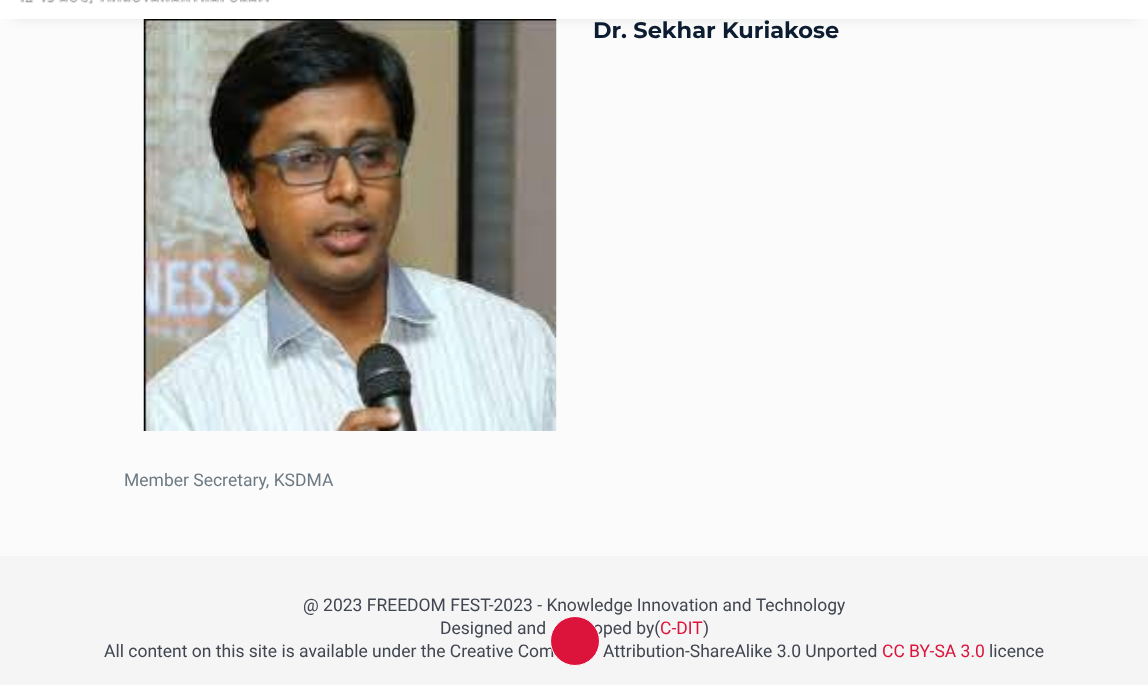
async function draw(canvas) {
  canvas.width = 1148
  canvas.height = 685
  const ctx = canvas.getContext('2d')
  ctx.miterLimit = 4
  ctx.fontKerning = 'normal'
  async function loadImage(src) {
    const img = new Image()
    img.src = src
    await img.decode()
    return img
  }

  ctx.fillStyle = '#fbfbfb'
  ctx.fillRect(0, 0, 1148, 685)
  ctx.drawImage(await loadImage('image1.png'), 143, 19, 414, 412)
  ctx.fillStyle = '#2123261a'
  ctx.filter = 'blur(6px)'
  ctx.beginPath()
  ctx.rect(13, -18, 1123, 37)
  ctx.fill()
  ctx.filter = 'none'
  ctx.fillStyle = '#fff'
  ctx.fillRect(0, 0, 1148, 19)
  ctx.drawImage(await loadImage('image0.png'), 20, 0, 249, 4)
  ctx.font = 'bold 22.5px Montserrat'
  ctx.fillStyle = '#0d1d31'
  ctx.fillText('Dr. Sekhar Kuriakose', 593, 38)
  ctx.font = '17.5px Roboto'
  ctx.fillStyle = '#6d7a83'
  ctx.fillText('Member Secretary, KSDMA', 124, 486)
  ctx.fillStyle = '#f5f5f5'
  ctx.fillRect(0, 556, 1148, 129)
  ctx.fillStyle = '#414650'
  ctx.fillText('@ 2023 FREEDOM FEST-2023 - Knowledge Innovation and Technology', 303, 611)
  ctx.fillText('Designed and', 440, 634)
  ctx.fillText('oped by(', 593, 634)
  ctx.fillStyle = '#dc143c'
  ctx.fillText('C-DIT', 660, 634)
  ctx.fillStyle = '#414650'
  ctx.fillText(')', 703, 634)
  ctx.fillText('All content on this site is available under the Creative Com', 104, 657)
  ctx.fillText('Attribution-ShareAlike 3.0 Unported', 603, 657)
  ctx.fillStyle = '#dc143c'
  ctx.fillText('CC BY-SA 3.0', 882, 657)
  ctx.fillStyle = '#414650'
  ctx.fillText('licence', 989, 657)
  ctx.fillStyle = '#dc143c'
  ctx.beginPath()
  ctx.arc(575, 641, 24.5, 0, 2 * Math.PI)
  ctx.fill()
  ctx.strokeStyle = '#fff'
  ctx.stroke()
}

draw(document.querySelector('canvas'))
